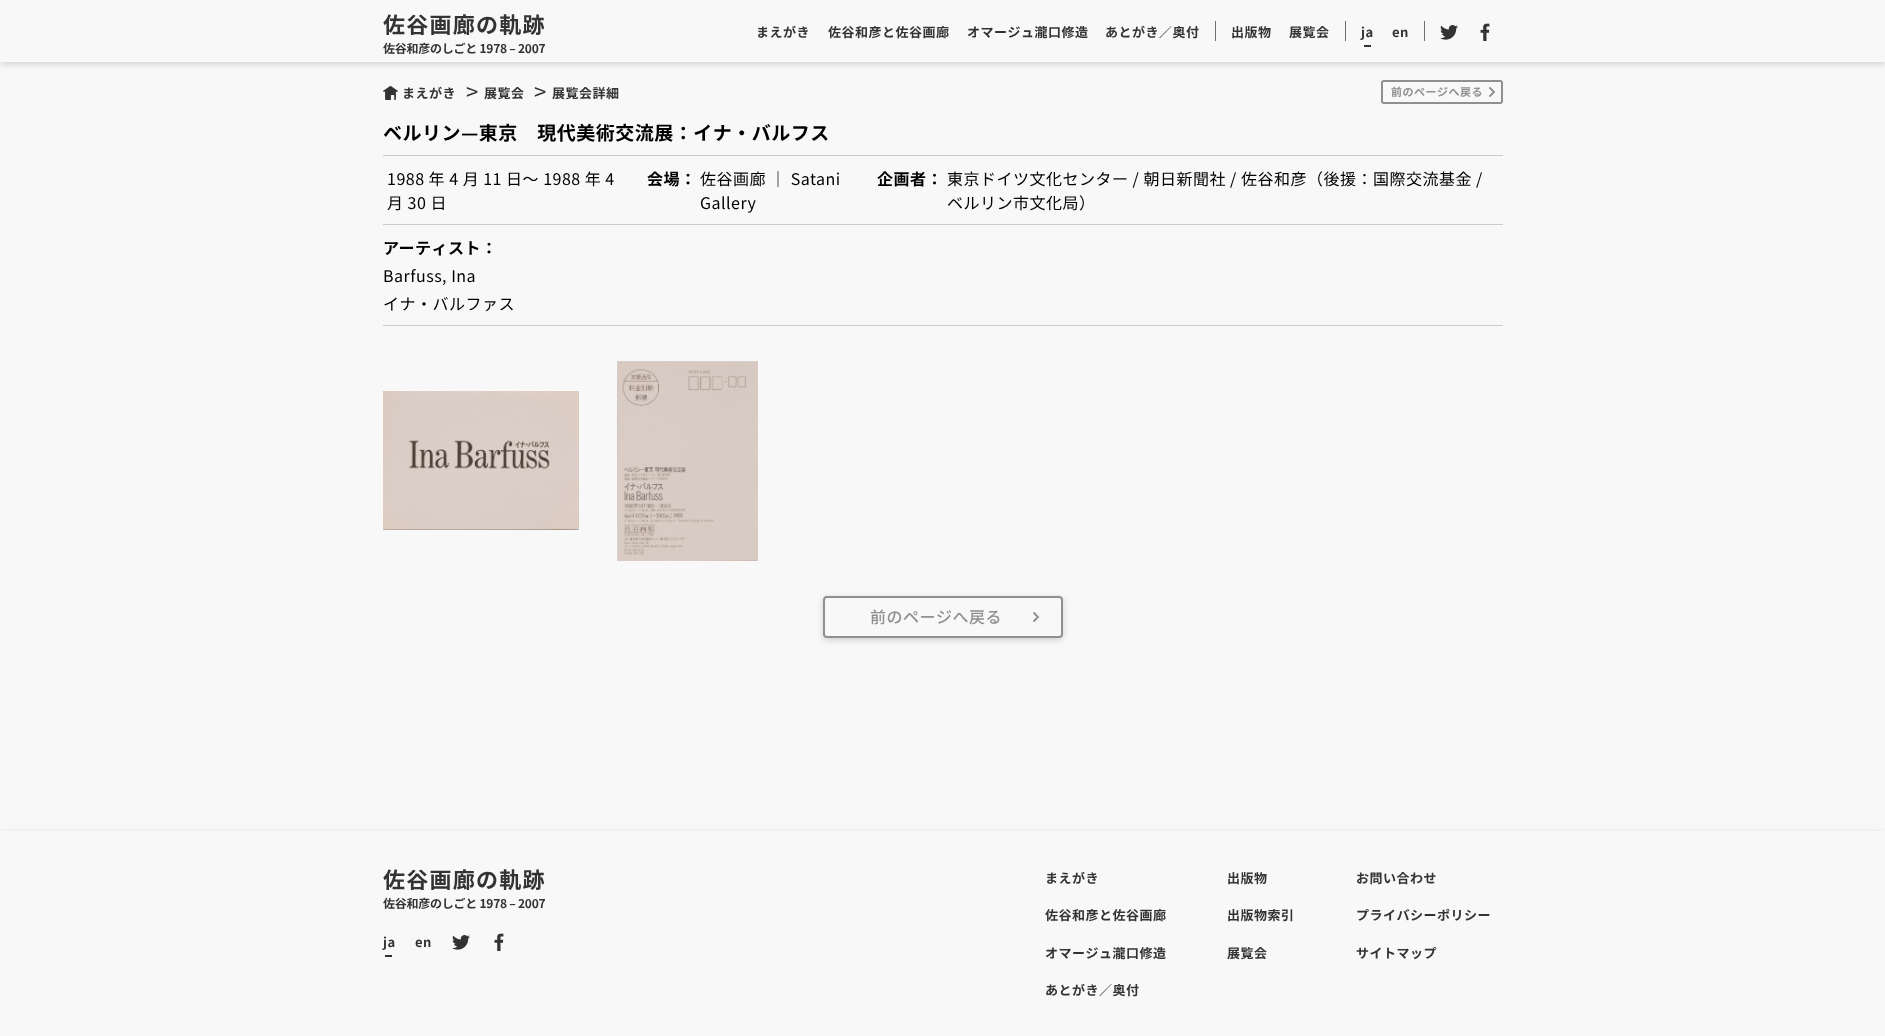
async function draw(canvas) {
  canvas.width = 1885
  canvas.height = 1036
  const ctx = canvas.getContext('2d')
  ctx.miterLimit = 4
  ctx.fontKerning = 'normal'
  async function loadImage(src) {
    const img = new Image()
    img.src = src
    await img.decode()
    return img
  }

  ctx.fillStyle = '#f8f8f8'
  ctx.fillRect(0, 0, 1885, 1036)
  ctx.fillStyle = '#00000029'
  ctx.filter = 'blur(3px)'
  ctx.beginPath()
  ctx.rect(0, 2, 1885, 62)
  ctx.fill()
  ctx.filter = 'none'
  ctx.fillStyle = '#f8f8f8'
  ctx.fillRect(0, 0, 1885, 62)
  ctx.letterSpacing = '1.25px'
  ctx.font = 'bold 22px Noto Sans JP'
  ctx.fillStyle = '#333'
  ctx.fillText('佐谷画廊の軌跡', 383, 33)
  ctx.letterSpacing = '-0.25px'
  ctx.font = 'bold 12px Noto Sans JP'
  ctx.fillText('佐谷和彦のしごと 1978 – 2007', 383, 53)
  ctx.letterSpacing = '0.5px'
  ctx.font = 'bold 13px Noto Sans JP'
  ctx.fillText('まえがき', 756, 37)
  ctx.fillText('佐谷和彦と佐谷画廊', 828, 37)
  ctx.fillText('オマージュ瀧口修造', 967, 37)
  ctx.fillText('あとがき／奥付', 1105, 37)
  ctx.fillStyle = '#707070'
  ctx.fillRect(1215, 21, 1, 20)
  ctx.fillStyle = '#333'
  ctx.fillText('出版物', 1231, 37)
  ctx.fillText('展覧会', 1289, 37)
  ctx.fillStyle = '#707070'
  ctx.fillRect(1345, 21, 1, 20)
  ctx.fillStyle = '#333'
  ctx.fillText('ja', 1361, 37)
  ctx.fillRect(1364, 45, 7, 2)
  ctx.fillText('en', 1392, 37)
  ctx.fillStyle = '#707070'
  ctx.fillRect(1424, 21, 1, 20)
  ctx.drawImage(await loadImage('image0.png'), 1440, 25, 18, 15)
  ctx.drawImage(await loadImage('image1.png'), 1480, 23, 10, 18)
  ctx.drawImage(await loadImage('image2.png'), 383, 86, 15, 14)
  ctx.fillStyle = '#333'
  ctx.fillText('まえがき', 402, 98)
  ctx.letterSpacing = '-8px'
  ctx.font = '22px Noto Sans JP'
  ctx.fillText('>', 466, 100)
  ctx.letterSpacing = '0.5px'
  ctx.font = 'bold 13px Noto Sans JP'
  ctx.fillText('展覧会', 484, 98)
  ctx.letterSpacing = '-8px'
  ctx.font = '22px Noto Sans JP'
  ctx.fillText('>', 534, 100)
  ctx.letterSpacing = '0.5px'
  ctx.font = 'bold 13px Noto Sans JP'
  ctx.fillText('展覧会詳細', 552, 98)
  ctx.beginPath()
  ctx.roundRect(1382, 81, 120, 22, 2)
  ctx.strokeStyle = '#909090'
  ctx.lineWidth = 2
  ctx.stroke()
  ctx.font = 'bold 11px Noto Sans JP'
  ctx.fillStyle = '#909090'
  ctx.fillText('前のページへ戻る', 1391, 96)
  ctx.beginPath()
  ctx.moveTo(1490, 88)
  ctx.lineTo(1494, 92)
  ctx.lineTo(1490, 96)
  ctx.lineWidth = 1.9
  ctx.lineCap = 'round'
  ctx.stroke()
  ctx.font = 'bold 19px Noto Sans JP'
  ctx.fillStyle = '#000'
  ctx.fillText('ベルリン—東京　現代美術交流展：イナ・バルフス', 383, 140)
  ctx.fillStyle = '#ccc'
  ctx.fillRect(383, 155, 1120, 1)
  ctx.font = '16px Noto Sans JP'
  ctx.fillStyle = '#000'
  ctx.fillText('1988 年 4 月 11 日〜 1988 年 4', 387, 185)
  ctx.fillText('月 30 日', 387, 209)
  ctx.font = 'bold 16px Noto Sans JP'
  ctx.fillText('会場：', 647, 185)
  ctx.font = '16px Noto Sans JP'
  ctx.fillText('佐谷画廊 ｜ Satani', 700, 185)
  ctx.fillText('Gallery', 700, 209)
  ctx.font = 'bold 16px Noto Sans JP'
  ctx.fillText('企画者：', 877, 185)
  ctx.font = '16px Noto Sans JP'
  ctx.fillText('東京ドイツ文化センター / 朝日新聞社 / 佐谷和彦（後援：国際交流基金 /', 947, 185)
  ctx.fillText('ベルリン市文化局）', 947, 209)
  ctx.fillStyle = '#ccc'
  ctx.fillRect(383, 224, 1120, 1)
  ctx.font = 'bold 16px Noto Sans JP'
  ctx.fillStyle = '#000'
  ctx.fillText('アーティスト：', 383, 254)
  ctx.font = '16px Noto Sans JP'
  ctx.fillText('Barfuss, Ina', 383, 282)
  ctx.fillText('イナ・バルファス', 383, 310)
  ctx.fillStyle = '#ccc'
  ctx.fillRect(383, 325, 1120, 1)
  ctx.drawImage(await loadImage('image3.png'), 383, 391, 196, 139)
  ctx.drawImage(await loadImage('image4.png'), 617, 361, 141, 200)
  ctx.fillStyle = '#00000029'
  ctx.filter = 'blur(3px)'
  ctx.beginPath()
  ctx.roundRect(823, 598, 240, 42, 4)
  ctx.fill()
  ctx.filter = 'none'
  ctx.fillStyle = '#f8f8f8'
  ctx.beginPath()
  ctx.roundRect(824, 597, 238, 40, 3)
  ctx.fill()
  ctx.lineWidth = 2
  ctx.stroke()
  ctx.font = '500 16px Noto Sans JP'
  ctx.fillStyle = '#909090'
  ctx.fillText('前のページへ戻る', 870, 623)
  ctx.beginPath()
  ctx.moveTo(1034, 613)
  ctx.lineTo(1038, 617)
  ctx.lineTo(1034, 621)
  ctx.lineWidth = 1.9
  ctx.stroke()
  ctx.fillStyle = '#00000029'
  ctx.filter = 'blur(3px)'
  ctx.beginPath()
  ctx.rect(0, 833, 1885, 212)
  ctx.fill()
  ctx.filter = 'none'
  ctx.fillStyle = '#f8f8f8'
  ctx.fillRect(0, 831, 1885, 205)
  ctx.letterSpacing = '1.25px'
  ctx.font = 'bold 22px Noto Sans JP'
  ctx.fillStyle = '#333'
  ctx.fillText('佐谷画廊の軌跡', 383, 888)
  ctx.letterSpacing = '-0.25px'
  ctx.font = 'bold 12px Noto Sans JP'
  ctx.fillText('佐谷和彦のしごと 1978 – 2007', 383, 908)
  ctx.letterSpacing = '0.5px'
  ctx.font = 'bold 13px Noto Sans JP'
  ctx.fillText('ja', 383, 947)
  ctx.fillRect(385, 955, 7, 2)
  ctx.fillText('en', 415, 947)
  ctx.drawImage(await loadImage('image0.png'), 452, 935, 18, 15)
  ctx.drawImage(await loadImage('image1.png'), 494, 933, 10, 18)
  ctx.fillText('まえがき', 1045, 883)
  ctx.fillText('出版物', 1227, 883)
  ctx.fillText('お問い合わせ', 1356, 883)
  ctx.fillText('佐谷和彦と佐谷画廊', 1045, 920)
  ctx.fillText('出版物索引', 1227, 920)
  ctx.fillText('プライバシーポリシー', 1356, 920)
  ctx.fillText('オマージュ瀧口修造', 1045, 958)
  ctx.fillText('展覧会', 1227, 958)
  ctx.fillText('サイトマップ', 1356, 958)
  ctx.fillText('あとがき／奥付', 1045, 995)
}

draw(document.querySelector('canvas'))
